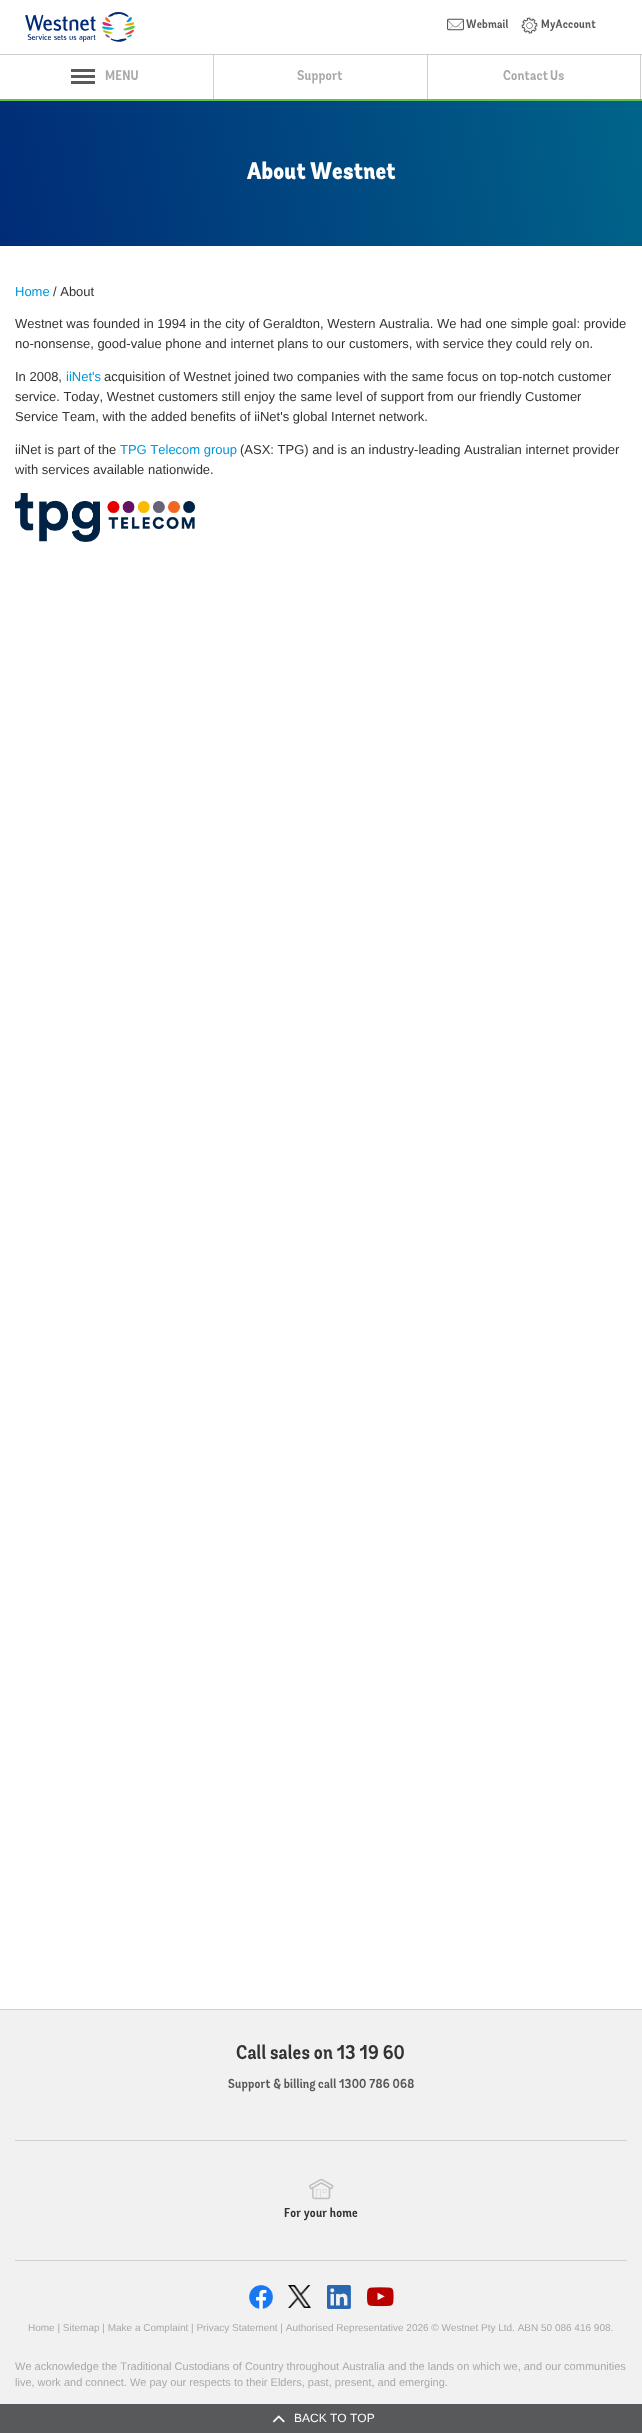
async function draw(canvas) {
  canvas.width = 642
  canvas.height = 2433
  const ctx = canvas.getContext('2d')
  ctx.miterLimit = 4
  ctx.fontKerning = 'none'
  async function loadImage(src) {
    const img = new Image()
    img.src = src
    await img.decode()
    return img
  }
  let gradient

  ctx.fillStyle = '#fff'
  ctx.fillRect(0, 0, 642, 2433)
  ctx.drawImage(await loadImage('image0.png'), 25, 12, 110, 30)
  ctx.drawImage(await loadImage('image1.png'), 447, 18, 17, 13)
  ctx.letterSpacing = '0.2px'
  ctx.font = '600 12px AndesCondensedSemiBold'
  ctx.fillStyle = '#58595b'
  ctx.fillText('Webmail', 466, 28)
  ctx.drawImage(await loadImage('image2.png'), 521, 17, 17, 17)
  ctx.fillText('MyAccount', 541, 28)
  ctx.fillStyle = '#cfcfcf'
  ctx.fillRect(0, 54, 642, 1)
  ctx.fillStyle = '#61c250'
  ctx.fillRect(0, 99, 642, 2)
  ctx.fillStyle = '#cfcfcf'
  ctx.fillRect(213, 55, 1, 44)
  ctx.fillStyle = '#58595b'
  ctx.fillRect(71, 75, 24, 3)
  ctx.fillRect(71, 69, 24, 3)
  ctx.fillRect(71, 81, 24, 3)
  ctx.font = '600 14px AndesCondensedSemiBold'
  ctx.fillStyle = '#a7a9ac'
  ctx.fillText('MENU', 105, 80)
  ctx.fillStyle = '#cfcfcf'
  ctx.fillRect(427, 55, 1, 44)
  ctx.fillStyle = '#a7a9ac'
  ctx.fillText('Support', 297, 80)
  ctx.fillStyle = '#cfcfcf'
  ctx.fillRect(640, 55, 1, 44)
  ctx.wordSpacing = '-1px'
  ctx.fillStyle = '#a7a9ac'
  ctx.fillText('Contact Us', 503, 80)
  gradient = ctx.createLinearGradient(-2.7, 231, 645, 116)
  gradient.addColorStop(0, '#002c77')
  gradient.addColorStop(1, '#00648a')
  ctx.fillStyle = gradient
  ctx.fillRect(0, 101, 642, 145)
  ctx.wordSpacing = '0px'
  ctx.font = '800 24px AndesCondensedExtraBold'
  ctx.fillStyle = '#fff'
  ctx.fillText('About Westnet', 247, 179)
  ctx.letterSpacing = '0px'
  ctx.font = '13px Liberation Sans'
  ctx.fillStyle = '#0098db'
  ctx.fillText('Home', 15, 296)
  ctx.fillStyle = '#333'
  ctx.fillText('/ About', 53, 296)
  ctx.fillText('Westnet was founded in 1994 in the city of Geraldton, Western Australia. We had one simple goal: provide', 15, 328)
  ctx.fillText('no-nonsense, good-value phone and internet plans to our customers, with service they could rely on.', 15, 348)
  ctx.fillText('In 2008,', 15, 381)
  ctx.fillStyle = '#0098db'
  ctx.fillText('iiNet\'s', 66, 381)
  ctx.fillStyle = '#333'
  ctx.fillText('acquisition of Westnet joined two companies with the same focus on top-notch customer', 104, 381)
  ctx.fillText('service. Today, Westnet customers still enjoy the same level of support from our friendly Customer', 15, 401)
  ctx.fillText('Service Team, with the added benefits of iiNet\'s global Internet network.', 15, 421)
  ctx.fillText('iiNet is part of the', 15, 454)
  ctx.fillStyle = '#0098db'
  ctx.fillText('TPG Telecom group', 120, 454)
  ctx.fillStyle = '#333'
  ctx.fillText('(ASX: TPG) and is an industry-leading Australian internet provider', 240, 454)
  ctx.fillText('with services available nationwide.', 15, 474)
  ctx.drawImage(await loadImage('image3.png'), 15, 493, 180, 49)
  ctx.fillStyle = '#f1f1f1'
  ctx.fillRect(0, 2010, 642, 394)
  ctx.fillStyle = '#cfcfcf'
  ctx.fillRect(0, 2009, 642, 1)
  ctx.fillRect(15, 2140, 612, 1)
  ctx.letterSpacing = '0.2px'
  ctx.wordSpacing = '-0.25px'
  ctx.font = '600 20px AndesCondensedSemiBold'
  ctx.fillStyle = '#333'
  ctx.fillText('Call sales on 13 19 60', 236, 2059)
  ctx.wordSpacing = '0px'
  ctx.font = '600 13px AndesCondensedSemiBold'
  ctx.fillStyle = '#58595b'
  ctx.fillText('Support & billing call 1300 786 068', 228, 2088)
  ctx.drawImage(await loadImage('image4.png'), 309, 2178, 25, 22)
  ctx.fillStyle = '#333'
  ctx.fillText('For your home', 284, 2217)
  ctx.fillStyle = '#cfcfcf'
  ctx.fillRect(15, 2260, 612, 1)
  ctx.drawImage(await loadImage('image5.png'), 249, 2285, 24, 24)
  ctx.drawImage(await loadImage('image6.png'), 288, 2285, 23, 23)
  ctx.drawImage(await loadImage('image7.png'), 327, 2285, 24, 24)
  ctx.drawImage(await loadImage('image8.png'), 367, 2287, 27, 20)
  ctx.letterSpacing = '0px'
  ctx.font = '10px Liberation Sans'
  ctx.fillStyle = '#a7a9ac'
  ctx.fillText('Home | Sitemap | Make a Complaint | Privacy Statement | Authorised Representative 2026 © Westnet Pty Ltd. ABN 50 086 416 908.', 28, 2331)
  ctx.font = '11px Liberation Sans'
  ctx.fillText('We acknowledge the Traditional Custodians of Country throughout Australia and the lands on which we, and our communities', 15, 2370)
  ctx.fillText('live, work and connect. We pay our respects to their Elders, past, present, and emerging.', 15, 2386)
  ctx.fillStyle = '#58595b'
  ctx.fillRect(0, 2404, 642, 29)
  ctx.drawImage(await loadImage('image9.png'), 272, 2415, 13, 8)
  ctx.font = '12px Liberation Sans'
  ctx.fillStyle = '#fff'
  ctx.fillText('BACK TO TOP', 294, 2422)
}

draw(document.querySelector('canvas'))
